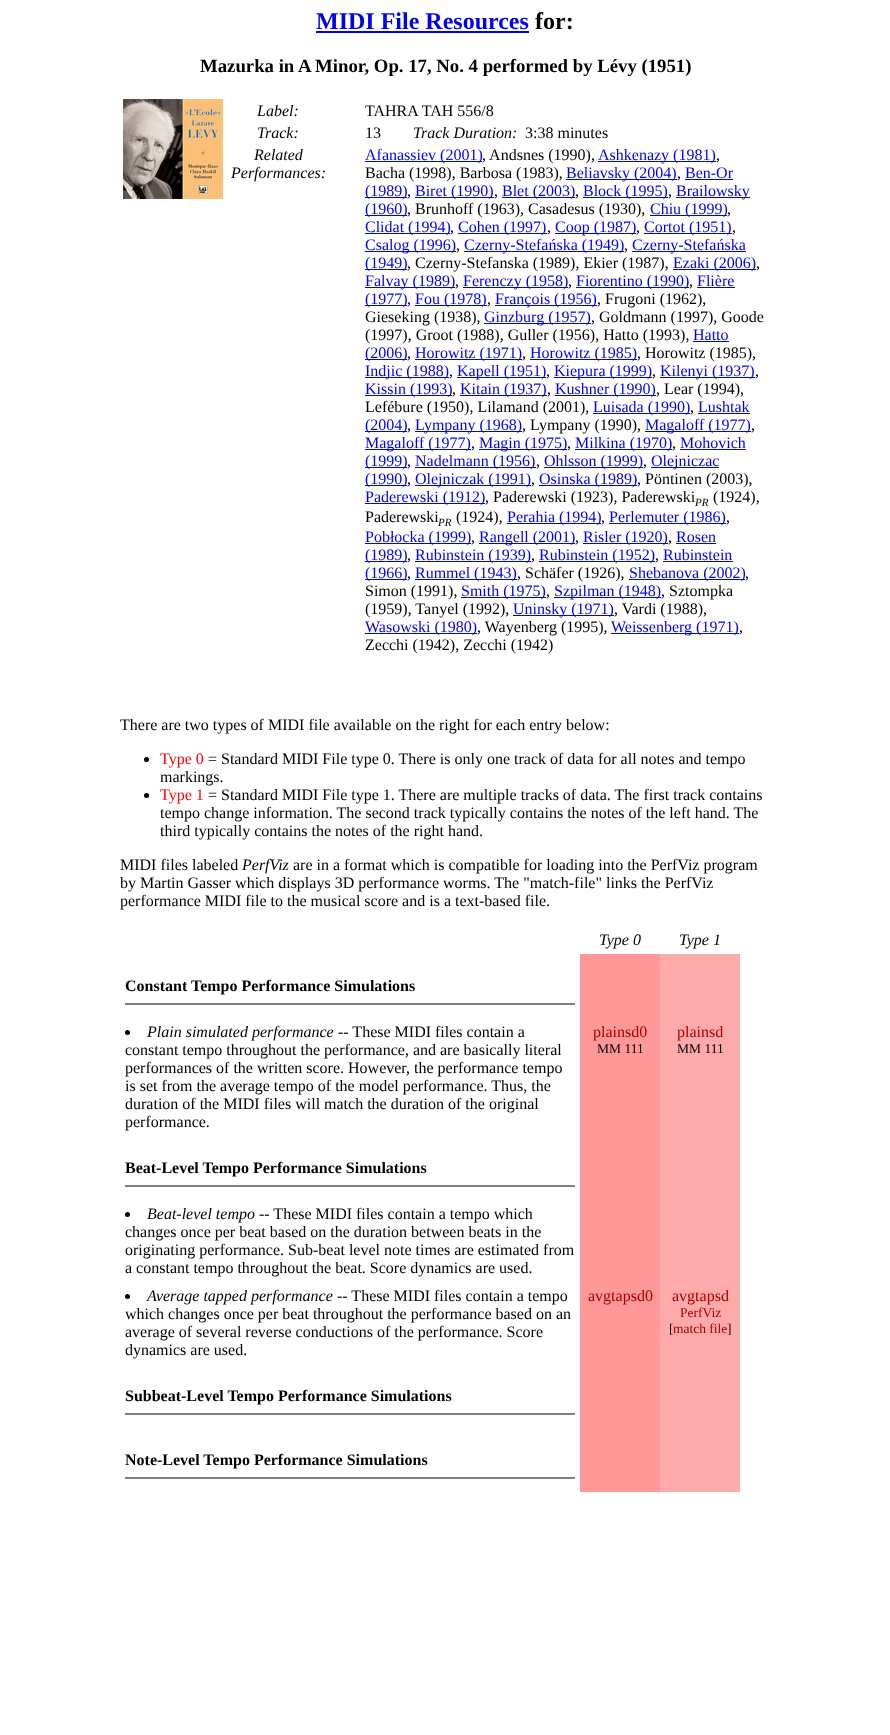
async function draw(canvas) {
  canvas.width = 890
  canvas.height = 1735
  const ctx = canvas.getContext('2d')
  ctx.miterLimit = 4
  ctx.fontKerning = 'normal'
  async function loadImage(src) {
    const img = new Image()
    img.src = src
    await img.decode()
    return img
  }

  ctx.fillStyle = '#fff'
  ctx.fillRect(0, 0, 890, 1735)
  ctx.font = 'bold 24px Liberation Serif'
  ctx.fillStyle = '#00e'
  ctx.fillText('MIDI File Resources', 316, 29)
  ctx.fillRect(316, 31, 213, 2)
  ctx.fillStyle = '#000'
  ctx.fillText('for:', 535, 29)
  ctx.font = 'bold 18.75px Liberation Serif'
  ctx.fillText('Mazurka in A Minor, Op. 17, No. 4 performed by Lévy (1951)', 200, 72)
  ctx.drawImage(await loadImage('image0.png'), 123, 99, 100, 100)
  ctx.font = 'italic 16px Liberation Serif'
  ctx.fillText('Label:', 257, 116)
  ctx.font = '16px Liberation Serif'
  ctx.fillText('TAHRA TAH 556/8', 365, 116)
  ctx.font = 'italic 16px Liberation Serif'
  ctx.fillText('Track:', 257, 138)
  ctx.font = '16px Liberation Serif'
  ctx.fillText('13', 365, 138)
  ctx.font = 'italic 16px Liberation Serif'
  ctx.fillText('Track Duration:', 413, 138)
  ctx.font = '16px Liberation Serif'
  ctx.fillText('3:38 minutes', 525, 138)
  ctx.font = 'italic 16px Liberation Serif'
  ctx.fillText('Related', 254, 160)
  ctx.fillText('Performances:', 231, 178)
  ctx.fillStyle = '#00e'
  ctx.fillRect(365, 161, 117, 1)
  ctx.font = '16px Liberation Serif'
  ctx.fillText('Afanassiev (2001)', 365, 160)
  ctx.fillStyle = '#000'
  ctx.fillText(', Andsnes (1990),', 482, 160)
  ctx.fillStyle = '#00e'
  ctx.fillRect(598, 161, 118, 1)
  ctx.fillText('Ashkenazy (1981)', 598, 160)
  ctx.fillStyle = '#000'
  ctx.fillText(',', 716, 160)
  ctx.fillText('Bacha (1998), Barbosa (1983),', 365, 178)
  ctx.fillStyle = '#00e'
  ctx.fillRect(566, 179, 111, 1)
  ctx.fillText('Beliavsky (2004)', 566, 178)
  ctx.fillStyle = '#000'
  ctx.fillText(',', 677, 178)
  ctx.fillStyle = '#00e'
  ctx.fillText('Ben-Or', 685, 178)
  ctx.fillRect(685, 179, 48, 1)
  ctx.fillRect(365, 197, 42, 1)
  ctx.fillText('(1989)', 365, 196)
  ctx.fillStyle = '#000'
  ctx.fillText(',', 407, 196)
  ctx.fillStyle = '#00e'
  ctx.fillRect(415, 197, 79, 1)
  ctx.fillText('Biret (1990)', 415, 196)
  ctx.fillStyle = '#000'
  ctx.fillText(',', 494, 196)
  ctx.fillStyle = '#00e'
  ctx.fillRect(502, 197, 73, 1)
  ctx.fillText('Blet (2003)', 502, 196)
  ctx.fillStyle = '#000'
  ctx.fillText(',', 575, 196)
  ctx.fillStyle = '#00e'
  ctx.fillRect(583, 197, 85, 1)
  ctx.fillText('Block (1995)', 583, 196)
  ctx.fillStyle = '#000'
  ctx.fillText(',', 668, 196)
  ctx.fillStyle = '#00e'
  ctx.fillRect(676, 197, 74, 1)
  ctx.fillText('Brailowsky', 676, 196)
  ctx.fillRect(365, 215, 42, 1)
  ctx.fillText('(1960)', 365, 214)
  ctx.fillStyle = '#000'
  ctx.fillText(', Brunhoff (1963), Casadesus (1930),', 407, 214)
  ctx.fillStyle = '#00e'
  ctx.fillRect(650, 215, 77, 1)
  ctx.fillText('Chiu (1999)', 650, 214)
  ctx.fillStyle = '#000'
  ctx.fillText(',', 727, 214)
  ctx.fillStyle = '#00e'
  ctx.fillRect(365, 233, 85, 1)
  ctx.fillText('Clidat (1994)', 365, 232)
  ctx.fillStyle = '#000'
  ctx.fillText(',', 450, 232)
  ctx.fillStyle = '#00e'
  ctx.fillRect(458, 233, 89, 1)
  ctx.fillText('Cohen (1997)', 458, 232)
  ctx.fillStyle = '#000'
  ctx.fillText(',', 547, 232)
  ctx.fillStyle = '#00e'
  ctx.fillRect(555, 233, 81, 1)
  ctx.fillText('Coop (1987)', 555, 232)
  ctx.fillStyle = '#000'
  ctx.fillText(',', 636, 232)
  ctx.fillStyle = '#00e'
  ctx.fillRect(644, 233, 88, 1)
  ctx.fillText('Cortot (1951)', 644, 232)
  ctx.fillStyle = '#000'
  ctx.fillText(',', 732, 232)
  ctx.fillStyle = '#00e'
  ctx.fillRect(365, 251, 91, 1)
  ctx.fillText('Csalog (1996)', 365, 250)
  ctx.fillStyle = '#000'
  ctx.fillText(',', 456, 250)
  ctx.fillStyle = '#00e'
  ctx.fillRect(464, 251, 160, 1)
  ctx.fillText('Czerny-Stefańska (1949)', 464, 250)
  ctx.fillStyle = '#000'
  ctx.fillText(',', 624, 250)
  ctx.fillStyle = '#00e'
  ctx.fillRect(632, 251, 114, 1)
  ctx.fillText('Czerny-Stefańska', 632, 250)
  ctx.fillRect(365, 269, 42, 1)
  ctx.fillText('(1949)', 365, 268)
  ctx.fillStyle = '#000'
  ctx.fillText(', Czerny-Stefanska (1989), Ekier (1987),', 407, 268)
  ctx.fillStyle = '#00e'
  ctx.fillRect(673, 269, 83, 1)
  ctx.fillText('Ezaki (2006)', 673, 268)
  ctx.fillStyle = '#000'
  ctx.fillText(',', 756, 268)
  ctx.fillStyle = '#00e'
  ctx.fillRect(365, 287, 90, 1)
  ctx.fillText('Falvay (1989)', 365, 286)
  ctx.fillStyle = '#000'
  ctx.fillText(',', 455, 286)
  ctx.fillStyle = '#00e'
  ctx.fillRect(463, 287, 105, 1)
  ctx.fillText('Ferenczy (1958)', 463, 286)
  ctx.fillStyle = '#000'
  ctx.fillText(',', 568, 286)
  ctx.fillStyle = '#00e'
  ctx.fillRect(576, 287, 113, 1)
  ctx.fillText('Fiorentino (1990)', 576, 286)
  ctx.fillStyle = '#000'
  ctx.fillText(',', 689, 286)
  ctx.fillStyle = '#00e'
  ctx.fillText('Flière', 697, 286)
  ctx.fillRect(697, 287, 38, 1)
  ctx.fillRect(365, 305, 42, 1)
  ctx.fillText('(1977)', 365, 304)
  ctx.fillStyle = '#000'
  ctx.fillText(',', 407, 304)
  ctx.fillStyle = '#00e'
  ctx.fillRect(415, 305, 72, 1)
  ctx.fillText('Fou (1978)', 415, 304)
  ctx.fillStyle = '#000'
  ctx.fillText(',', 487, 304)
  ctx.fillStyle = '#00e'
  ctx.fillRect(495, 305, 102, 1)
  ctx.fillText('François (1956)', 495, 304)
  ctx.fillStyle = '#000'
  ctx.fillText(', Frugoni (1962),', 597, 304)
  ctx.fillText('Gieseking (1938),', 365, 322)
  ctx.fillStyle = '#00e'
  ctx.fillRect(484, 323, 107, 1)
  ctx.fillText('Ginzburg (1957)', 484, 322)
  ctx.fillStyle = '#000'
  ctx.fillText(', Goldmann (1997), Goode', 591, 322)
  ctx.fillText('(1997), Groot (1988), Guller (1956), Hatto (1993),', 365, 340)
  ctx.fillStyle = '#00e'
  ctx.fillText('Hatto', 693, 340)
  ctx.fillRect(693, 341, 36, 1)
  ctx.fillRect(365, 359, 42, 1)
  ctx.fillText('(2006)', 365, 358)
  ctx.fillStyle = '#000'
  ctx.fillText(',', 407, 358)
  ctx.fillStyle = '#00e'
  ctx.fillRect(415, 359, 107, 1)
  ctx.fillText('Horowitz (1971)', 415, 358)
  ctx.fillStyle = '#000'
  ctx.fillText(',', 522, 358)
  ctx.fillStyle = '#00e'
  ctx.fillRect(530, 359, 107, 1)
  ctx.fillText('Horowitz (1985)', 530, 358)
  ctx.fillStyle = '#000'
  ctx.fillText(', Horowitz (1985),', 637, 358)
  ctx.fillStyle = '#00e'
  ctx.fillRect(365, 377, 84, 1)
  ctx.fillText('Indjic (1988)', 365, 376)
  ctx.fillStyle = '#000'
  ctx.fillText(',', 449, 376)
  ctx.fillStyle = '#00e'
  ctx.fillRect(457, 377, 89, 1)
  ctx.fillText('Kapell (1951)', 457, 376)
  ctx.fillStyle = '#000'
  ctx.fillText(',', 546, 376)
  ctx.fillStyle = '#00e'
  ctx.fillRect(554, 377, 98, 1)
  ctx.fillText('Kiepura (1999)', 554, 376)
  ctx.fillStyle = '#000'
  ctx.fillText(',', 652, 376)
  ctx.fillStyle = '#00e'
  ctx.fillRect(660, 377, 95, 1)
  ctx.fillText('Kilenyi (1937)', 660, 376)
  ctx.fillStyle = '#000'
  ctx.fillText(',', 755, 376)
  ctx.fillStyle = '#00e'
  ctx.fillRect(365, 395, 87, 1)
  ctx.fillText('Kissin (1993)', 365, 394)
  ctx.fillStyle = '#000'
  ctx.fillText(',', 452, 394)
  ctx.fillStyle = '#00e'
  ctx.fillRect(460, 395, 87, 1)
  ctx.fillText('Kitain (1937)', 460, 394)
  ctx.fillStyle = '#000'
  ctx.fillText(',', 547, 394)
  ctx.fillStyle = '#00e'
  ctx.fillRect(555, 395, 101, 1)
  ctx.fillText('Kushner (1990)', 555, 394)
  ctx.fillStyle = '#000'
  ctx.fillText(', Lear (1994),', 656, 394)
  ctx.fillText('Lefébure (1950), Lilamand (2001),', 365, 412)
  ctx.fillStyle = '#00e'
  ctx.fillRect(593, 413, 97, 1)
  ctx.fillText('Luisada (1990)', 593, 412)
  ctx.fillStyle = '#000'
  ctx.fillText(',', 690, 412)
  ctx.fillStyle = '#00e'
  ctx.fillText('Lushtak', 698, 412)
  ctx.fillRect(698, 413, 52, 1)
  ctx.fillRect(365, 431, 42, 1)
  ctx.fillText('(2004)', 365, 430)
  ctx.fillStyle = '#000'
  ctx.fillText(',', 407, 430)
  ctx.fillStyle = '#00e'
  ctx.fillRect(415, 431, 107, 1)
  ctx.fillText('Lympany (1968)', 415, 430)
  ctx.fillStyle = '#000'
  ctx.fillText(', Lympany (1990),', 522, 430)
  ctx.fillStyle = '#00e'
  ctx.fillRect(645, 431, 106, 1)
  ctx.fillText('Magaloff (1977)', 645, 430)
  ctx.fillStyle = '#000'
  ctx.fillText(',', 751, 430)
  ctx.fillStyle = '#00e'
  ctx.fillRect(365, 449, 106, 1)
  ctx.fillText('Magaloff (1977)', 365, 448)
  ctx.fillStyle = '#000'
  ctx.fillText(',', 471, 448)
  ctx.fillStyle = '#00e'
  ctx.fillRect(479, 449, 88, 1)
  ctx.fillText('Magin (1975)', 479, 448)
  ctx.fillStyle = '#000'
  ctx.fillText(',', 567, 448)
  ctx.fillStyle = '#00e'
  ctx.fillRect(575, 449, 97, 1)
  ctx.fillText('Milkina (1970)', 575, 448)
  ctx.fillStyle = '#000'
  ctx.fillText(',', 672, 448)
  ctx.fillStyle = '#00e'
  ctx.fillText('Mohovich', 680, 448)
  ctx.fillRect(680, 449, 66, 1)
  ctx.fillRect(365, 467, 42, 1)
  ctx.fillText('(1999)', 365, 466)
  ctx.fillStyle = '#000'
  ctx.fillText(',', 407, 466)
  ctx.fillStyle = '#00e'
  ctx.fillRect(415, 467, 121, 1)
  ctx.fillText('Nadelmann (1956)', 415, 466)
  ctx.fillStyle = '#000'
  ctx.fillText(',', 536, 466)
  ctx.fillStyle = '#00e'
  ctx.fillRect(544, 467, 99, 1)
  ctx.fillText('Ohlsson (1999)', 544, 466)
  ctx.fillStyle = '#000'
  ctx.fillText(',', 643, 466)
  ctx.fillStyle = '#00e'
  ctx.fillRect(651, 467, 68, 1)
  ctx.fillText('Olejniczac', 651, 466)
  ctx.fillRect(365, 485, 42, 1)
  ctx.fillText('(1990)', 365, 484)
  ctx.fillStyle = '#000'
  ctx.fillText(',', 407, 484)
  ctx.fillStyle = '#00e'
  ctx.fillRect(415, 485, 116, 1)
  ctx.fillText('Olejniczak (1991)', 415, 484)
  ctx.fillStyle = '#000'
  ctx.fillText(',', 531, 484)
  ctx.fillStyle = '#00e'
  ctx.fillRect(539, 485, 98, 1)
  ctx.fillText('Osinska (1989)', 539, 484)
  ctx.fillStyle = '#000'
  ctx.fillText(', Pöntinen (2003),', 637, 484)
  ctx.fillStyle = '#00e'
  ctx.fillRect(365, 503, 120, 1)
  ctx.fillText('Paderewski (1912)', 365, 502)
  ctx.fillStyle = '#000'
  ctx.fillText(', Paderewski (1923), Paderewski', 485, 502)
  ctx.font = 'italic 11px Liberation Serif'
  ctx.fillText('PR', 695, 506)
  ctx.font = '16px Liberation Serif'
  ctx.fillText('(1924),', 713, 502)
  ctx.fillText('Paderewski', 365, 522)
  ctx.font = 'italic 11px Liberation Serif'
  ctx.fillText('PR', 438, 526)
  ctx.font = '16px Liberation Serif'
  ctx.fillText('(1924),', 456, 522)
  ctx.fillStyle = '#00e'
  ctx.fillRect(507, 523, 94, 1)
  ctx.fillText('Perahia (1994)', 507, 522)
  ctx.fillStyle = '#000'
  ctx.fillText(',', 601, 522)
  ctx.fillStyle = '#00e'
  ctx.fillRect(609, 523, 117, 1)
  ctx.fillText('Perlemuter (1986)', 609, 522)
  ctx.fillStyle = '#000'
  ctx.fillText(',', 726, 522)
  ctx.fillStyle = '#00e'
  ctx.fillRect(365, 543, 106, 1)
  ctx.fillText('Pobłocka (1999)', 365, 542)
  ctx.fillStyle = '#000'
  ctx.fillText(',', 471, 542)
  ctx.fillStyle = '#00e'
  ctx.fillRect(479, 543, 96, 1)
  ctx.fillText('Rangell (2001)', 479, 542)
  ctx.fillStyle = '#000'
  ctx.fillText(',', 575, 542)
  ctx.fillStyle = '#00e'
  ctx.fillRect(583, 543, 85, 1)
  ctx.fillText('Risler (1920)', 583, 542)
  ctx.fillStyle = '#000'
  ctx.fillText(',', 668, 542)
  ctx.fillStyle = '#00e'
  ctx.fillText('Rosen', 676, 542)
  ctx.fillRect(676, 543, 40, 1)
  ctx.fillRect(365, 561, 42, 1)
  ctx.fillText('(1989)', 365, 560)
  ctx.fillStyle = '#000'
  ctx.fillText(',', 407, 560)
  ctx.fillStyle = '#00e'
  ctx.fillRect(415, 561, 116, 1)
  ctx.fillText('Rubinstein (1939)', 415, 560)
  ctx.fillStyle = '#000'
  ctx.fillText(',', 531, 560)
  ctx.fillStyle = '#00e'
  ctx.fillRect(539, 561, 116, 1)
  ctx.fillText('Rubinstein (1952)', 539, 560)
  ctx.fillStyle = '#000'
  ctx.fillText(',', 655, 560)
  ctx.fillStyle = '#00e'
  ctx.fillText('Rubinstein', 663, 560)
  ctx.fillRect(663, 561, 70, 1)
  ctx.fillRect(365, 579, 42, 1)
  ctx.fillText('(1966)', 365, 578)
  ctx.fillStyle = '#000'
  ctx.fillText(',', 407, 578)
  ctx.fillStyle = '#00e'
  ctx.fillRect(415, 579, 102, 1)
  ctx.fillText('Rummel (1943)', 415, 578)
  ctx.fillStyle = '#000'
  ctx.fillText(', Schäfer (1926),', 517, 578)
  ctx.fillStyle = '#00e'
  ctx.fillRect(629, 579, 116, 1)
  ctx.fillText('Shebanova (2002)', 629, 578)
  ctx.fillStyle = '#000'
  ctx.fillText(',', 745, 578)
  ctx.fillText('Simon (1991),', 365, 596)
  ctx.fillStyle = '#00e'
  ctx.fillRect(461, 597, 85, 1)
  ctx.fillText('Smith (1975)', 461, 596)
  ctx.fillStyle = '#000'
  ctx.fillText(',', 546, 596)
  ctx.fillStyle = '#00e'
  ctx.fillRect(554, 597, 107, 1)
  ctx.fillText('Szpilman (1948)', 554, 596)
  ctx.fillStyle = '#000'
  ctx.fillText(', Sztompka', 661, 596)
  ctx.fillText('(1959), Tanyel (1992),', 365, 614)
  ctx.fillStyle = '#00e'
  ctx.fillRect(513, 615, 101, 1)
  ctx.fillText('Uninsky (1971)', 513, 614)
  ctx.fillStyle = '#000'
  ctx.fillText(', Vardi (1988),', 614, 614)
  ctx.fillStyle = '#00e'
  ctx.fillRect(365, 633, 112, 1)
  ctx.fillText('Wasowski (1980)', 365, 632)
  ctx.fillStyle = '#000'
  ctx.fillText(', Wayenberg (1995),', 477, 632)
  ctx.fillStyle = '#00e'
  ctx.fillRect(611, 633, 128, 1)
  ctx.fillText('Weissenberg (1971)', 611, 632)
  ctx.fillStyle = '#000'
  ctx.fillText(',', 739, 632)
  ctx.fillText('Zecchi (1942), Zecchi (1942)', 365, 650)
  ctx.fillText('There are two types of MIDI file available on the right for each entry below:', 120, 730)
  ctx.beginPath()
  ctx.arc(146.5, 759.5, 2.5, 0, 2 * Math.PI)
  ctx.fill()
  ctx.fillStyle = '#f00'
  ctx.fillText('Type 0', 160, 764)
  ctx.fillStyle = '#000'
  ctx.fillText('= Standard MIDI File type 0. There is only one track of data for all notes and tempo', 208, 764)
  ctx.fillText('markings.', 160, 782)
  ctx.beginPath()
  ctx.arc(146.5, 795.5, 2.5, 0, 2 * Math.PI)
  ctx.fill()
  ctx.fillStyle = '#f00'
  ctx.fillText('Type 1', 160, 800)
  ctx.fillStyle = '#000'
  ctx.fillText('= Standard MIDI File type 1. There are multiple tracks of data. The first track contains', 208, 800)
  ctx.fillText('tempo change information. The second track typically contains the notes of the left hand. The', 160, 818)
  ctx.fillText('third typically contains the notes of the right hand.', 160, 836)
  ctx.fillText('MIDI files labeled', 120, 870)
  ctx.font = 'italic 16px Liberation Serif'
  ctx.fillText('PerfViz', 242, 870)
  ctx.font = '16px Liberation Serif'
  ctx.fillText('are in a format which is compatible for loading into the PerfViz program', 293, 870)
  ctx.fillText('by Martin Gasser which displays 3D performance worms. The "match-file" links the PerfViz', 120, 888)
  ctx.fillText('performance MIDI file to the musical score and is a text-based file.', 120, 906)
  ctx.font = 'italic 16px Liberation Serif'
  ctx.fillText('Type 0', 599, 945)
  ctx.fillText('Type 1', 679, 945)
  ctx.font = 'bold 16px Liberation Serif'
  ctx.fillText('Constant Tempo Performance Simulations', 125, 991)
  ctx.fillStyle = '#808080'
  ctx.fillRect(125, 1003, 450, 2)
  ctx.fillStyle = '#f99'
  ctx.fillRect(580, 954, 80, 538)
  ctx.fillStyle = '#faa'
  ctx.fillRect(660, 954, 80, 538)
  ctx.fillStyle = '#000'
  ctx.beginPath()
  ctx.arc(127.5, 1032.5, 2.5, 0, 2 * Math.PI)
  ctx.fill()
  ctx.font = 'italic 16px Liberation Serif'
  ctx.fillText('Plain simulated performance', 147, 1037)
  ctx.font = '16px Liberation Serif'
  ctx.fillText('-- These MIDI files contain a', 338, 1037)
  ctx.fillText('constant tempo throughout the performance, and are basically literal', 125, 1055)
  ctx.fillText('performances of the written score. However, the performance tempo', 125, 1073)
  ctx.fillText('is set from the average tempo of the model performance. Thus, the', 125, 1091)
  ctx.fillText('duration of the MIDI files will match the duration of the original', 125, 1109)
  ctx.fillText('performance.', 125, 1127)
  ctx.fillStyle = '#a00'
  ctx.fillText('plainsd0', 593, 1037)
  ctx.font = '13.5px Liberation Serif'
  ctx.fillStyle = '#000'
  ctx.fillText('MM 111', 597, 1053)
  ctx.font = '16px Liberation Serif'
  ctx.fillStyle = '#a00'
  ctx.fillText('plainsd', 677, 1037)
  ctx.font = '13.5px Liberation Serif'
  ctx.fillStyle = '#000'
  ctx.fillText('MM 111', 677, 1053)
  ctx.font = 'bold 16px Liberation Serif'
  ctx.fillText('Beat-Level Tempo Performance Simulations', 125, 1173)
  ctx.fillStyle = '#808080'
  ctx.fillRect(125, 1185, 450, 2)
  ctx.fillStyle = '#000'
  ctx.beginPath()
  ctx.arc(127.5, 1214.5, 2.5, 0, 2 * Math.PI)
  ctx.fill()
  ctx.font = 'italic 16px Liberation Serif'
  ctx.fillText('Beat-level tempo', 147, 1219)
  ctx.font = '16px Liberation Serif'
  ctx.fillText('-- These MIDI files contain a tempo which', 259, 1219)
  ctx.fillText('changes once per beat based on the duration between beats in the', 125, 1237)
  ctx.fillText('originating performance. Sub-beat level note times are estimated from', 125, 1255)
  ctx.fillText('a constant tempo throughout the beat. Score dynamics are used.', 125, 1273)
  ctx.beginPath()
  ctx.arc(127.5, 1296.5, 2.5, 0, 2 * Math.PI)
  ctx.fill()
  ctx.font = 'italic 16px Liberation Serif'
  ctx.fillText('Average tapped performance', 147, 1301)
  ctx.font = '16px Liberation Serif'
  ctx.fillText('-- These MIDI files contain a tempo', 337, 1301)
  ctx.fillText('which changes once per beat throughout the performance based on an', 125, 1319)
  ctx.fillText('average of several reverse conductions of the performance. Score', 125, 1337)
  ctx.fillText('dynamics are used.', 125, 1355)
  ctx.fillStyle = '#a00'
  ctx.fillText('avgtapsd0', 588, 1301)
  ctx.fillText('avgtapsd', 672, 1301)
  ctx.font = '13.5px Liberation Serif'
  ctx.fillText('PerfViz', 680, 1317)
  ctx.fillStyle = '#000'
  ctx.fillText('[', 669, 1333)
  ctx.fillStyle = '#a00'
  ctx.fillText('match file', 673, 1333)
  ctx.fillStyle = '#000'
  ctx.fillText(']', 727, 1333)
  ctx.font = 'bold 16px Liberation Serif'
  ctx.fillText('Subbeat-Level Tempo Performance Simulations', 125, 1401)
  ctx.fillStyle = '#808080'
  ctx.fillRect(125, 1413, 450, 2)
  ctx.fillStyle = '#000'
  ctx.fillText('Note-Level Tempo Performance Simulations', 125, 1465)
  ctx.fillStyle = '#808080'
  ctx.fillRect(125, 1477, 450, 2)
}

draw(document.querySelector('canvas'))
